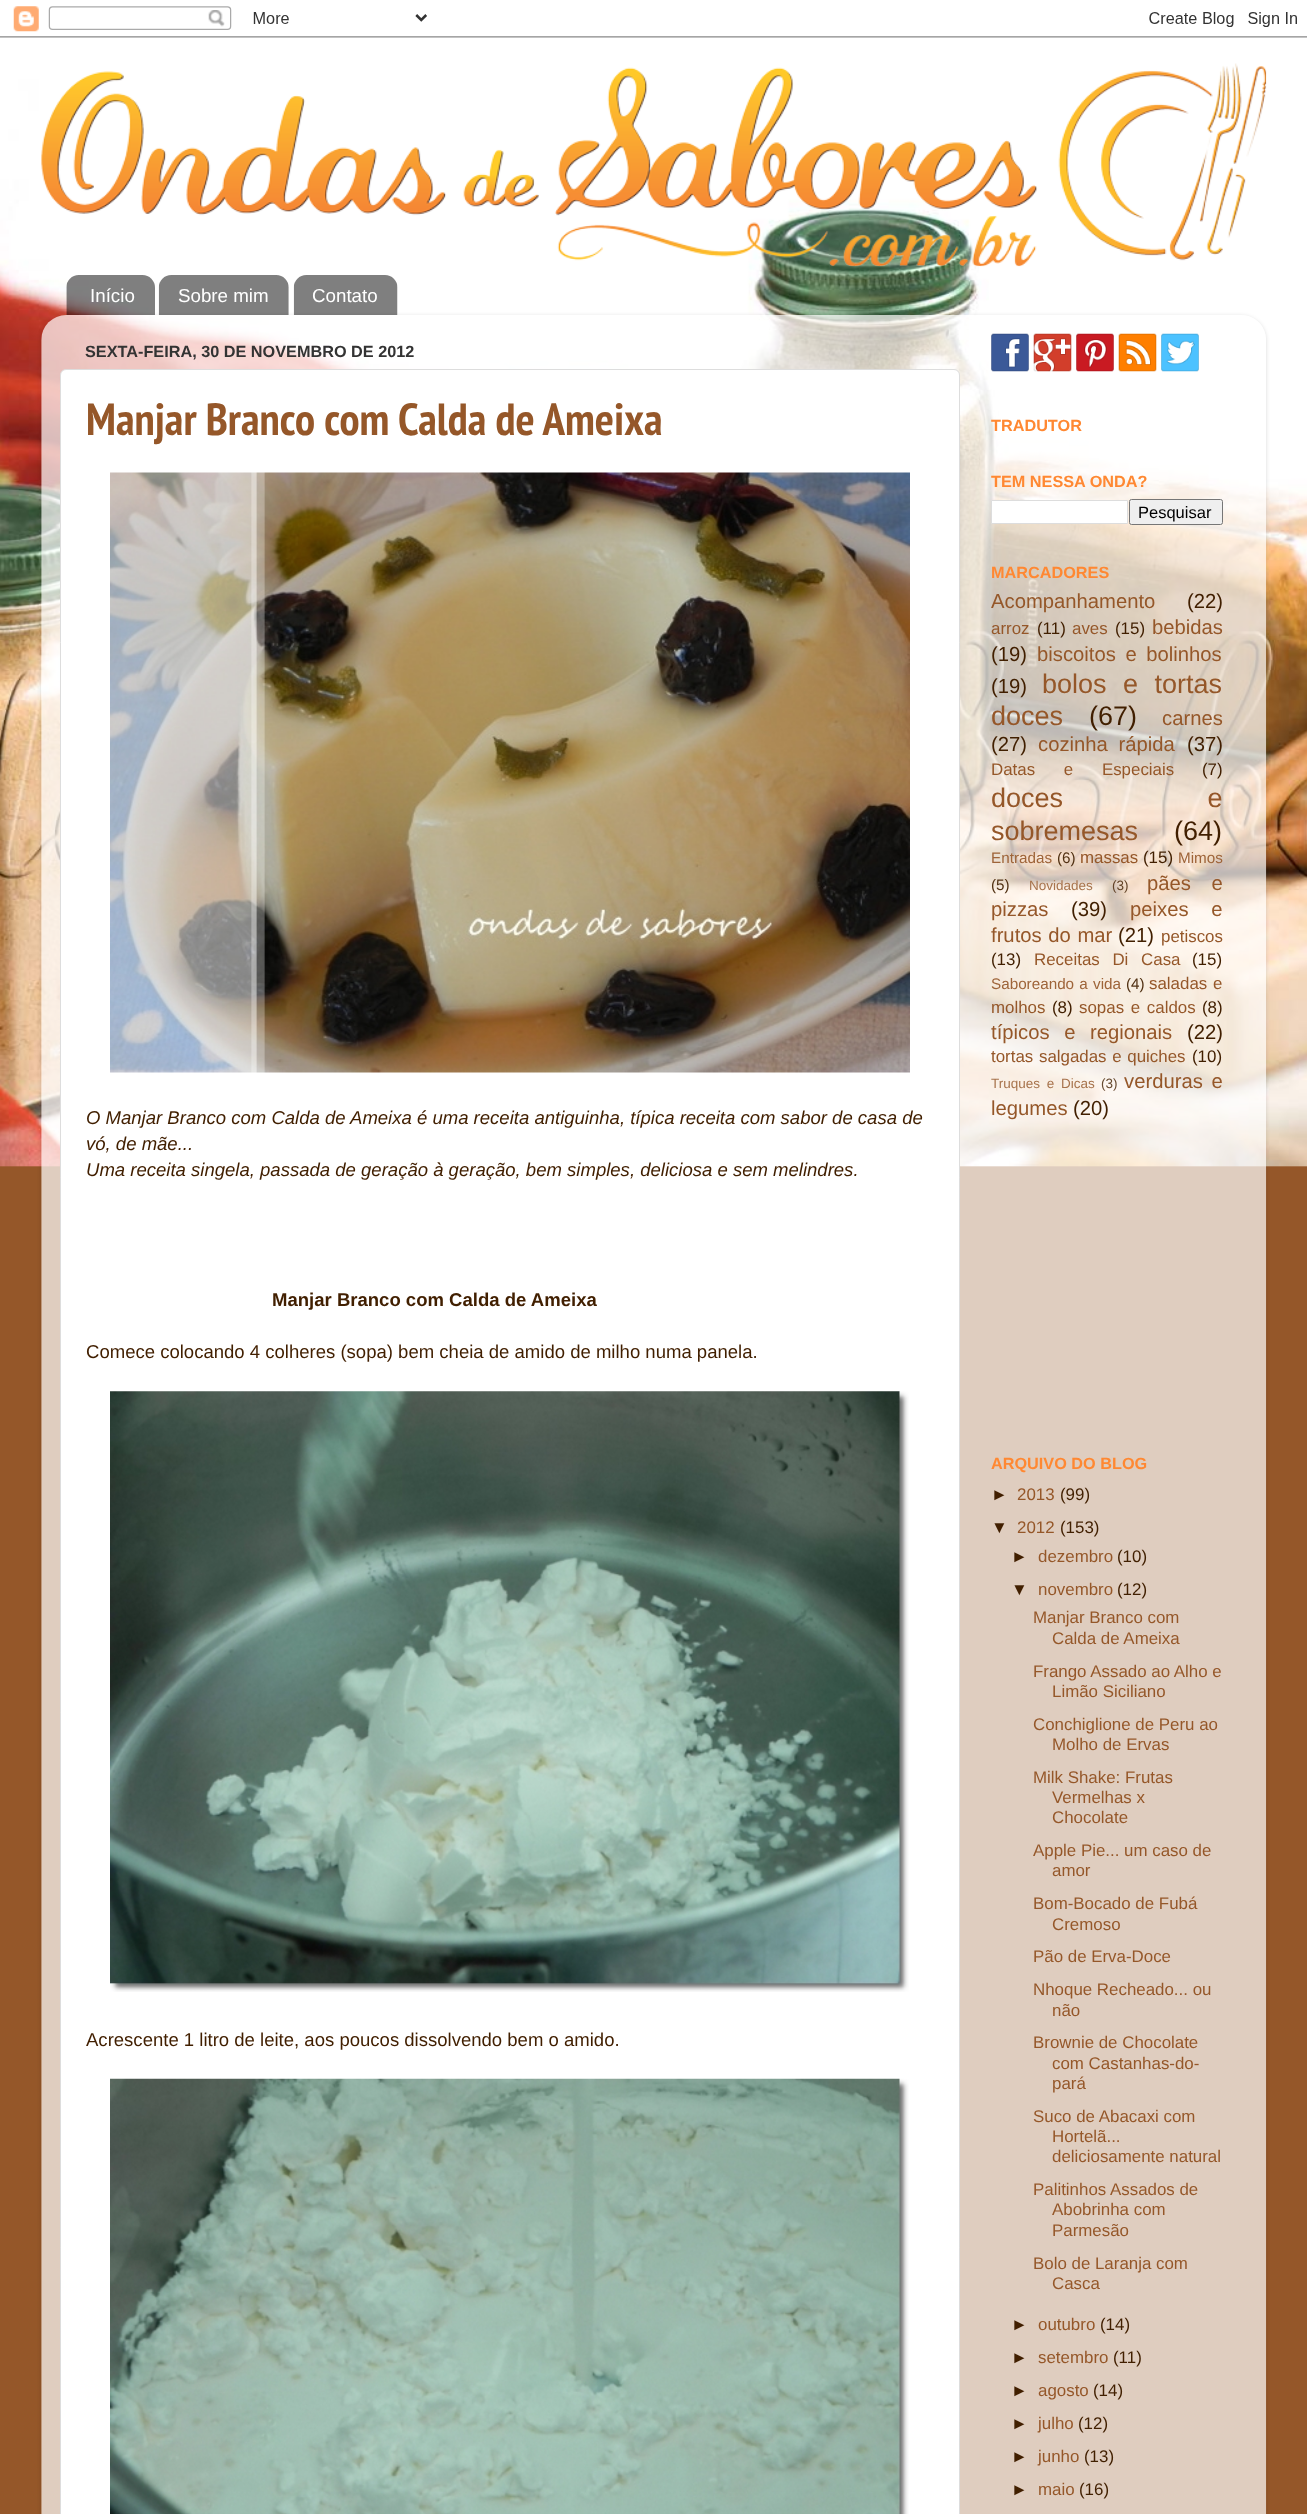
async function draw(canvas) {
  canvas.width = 1307
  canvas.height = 2514
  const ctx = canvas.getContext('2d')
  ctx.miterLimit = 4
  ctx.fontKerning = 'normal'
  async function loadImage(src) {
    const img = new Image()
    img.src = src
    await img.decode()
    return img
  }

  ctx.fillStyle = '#955729'
  ctx.fillRect(0, 0, 1307, 2514)
  ctx.drawImage(await loadImage('image0.png'), 0, 0, 1307, 1167)
  ctx.drawImage(await loadImage('image1.png'), 0, 6, 1307, 32)
  ctx.drawImage(await loadImage('image2.png'), 41, 63, 1226, 204)
  ctx.drawImage(await loadImage('image3.png'), 66, 275, 89, 40)
  ctx.font = '18.75px Liberation Sans'
  ctx.fillStyle = '#fff'
  ctx.fillText('Início', 90, 302)
  ctx.drawImage(await loadImage('image4.png'), 158, 275, 131, 40)
  ctx.fillText('Sobre mim', 178, 302)
  ctx.drawImage(await loadImage('image5.png'), 293, 275, 105, 40)
  ctx.fillText('Contato', 312, 302)
  ctx.save()
  ctx.beginPath()
  ctx.moveTo(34, 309)
  ctx.lineTo(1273, 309)
  ctx.lineTo(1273, 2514)
  ctx.lineTo(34, 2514)
  ctx.closePath()
  ctx.moveTo(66, 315)
  ctx.lineTo(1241, 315)
  ctx.bezierCurveTo(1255, 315, 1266, 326, 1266, 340)
  ctx.lineTo(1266, 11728)
  ctx.lineTo(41, 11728)
  ctx.lineTo(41, 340)
  ctx.bezierCurveTo(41, 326, 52, 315, 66, 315)
  ctx.closePath()
  ctx.clip('evenodd')
  ctx.fillStyle = '#00000026'
  ctx.filter = 'blur(2px)'
  ctx.beginPath()
  ctx.roundRect(41, 316, 1225, 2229, 25)
  ctx.fill()
  ctx.filter = 'none'
  ctx.restore()
  ctx.drawImage(await loadImage('image6.png'), 41, 315, 1226, 2199)
  ctx.font = 'bold 16.25px Liberation Sans'
  ctx.fillStyle = '#333'
  ctx.fillText('SEXTA-FEIRA, 30 DE NOVEMBRO DE 2012', 85, 357)
  ctx.fillStyle = '#fff'
  ctx.beginPath()
  ctx.roundRect(60.5, 369.5, 899, 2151, 5.5)
  ctx.fill()
  ctx.strokeStyle = '#ddd'
  ctx.stroke()
  ctx.font = 'bold 45px PT Sans Narrow'
  ctx.fillStyle = '#955729'
  ctx.fillText('Manjar Branco com Calda de Ameixa', 86, 435)
  ctx.drawImage(await loadImage('image7.png'), 110, 472, 800, 601)
  ctx.font = 'italic 18.55px Liberation Sans'
  ctx.fillStyle = '#411f00'
  ctx.fillText('O Manjar Branco com Calda de Ameixa é uma receita antiguinha, típica receita com sabor de casa de', 86, 1124)
  ctx.fillText('vó, de mãe...', 86, 1150)
  ctx.fillText('Uma receita singela, passada de geração à geração, bem simples, deliciosa e sem melindres.', 86, 1176)
  ctx.font = 'bold 18.55px Liberation Sans'
  ctx.fillText('Manjar Branco com Calda de Ameixa', 272, 1306)
  ctx.font = '18.55px Liberation Sans'
  ctx.fillText('Comece colocando 4 colheres (sopa) bem cheia de amido de milho numa panela.', 86, 1358)
  ctx.drawImage(await loadImage('image8.png'), 110, 1391, 799, 601)
  ctx.fillText('Acrescente 1 litro de leite, aos poucos dissolvendo bem o amido.', 86, 2046)
  ctx.drawImage(await loadImage('image9.png'), 110, 2078, 799, 436)
  ctx.drawImage(await loadImage('image10.png'), 991, 333, 38, 39)
  ctx.drawImage(await loadImage('image11.png'), 1033, 333, 39, 39)
  ctx.drawImage(await loadImage('image12.png'), 1076, 333, 38, 39)
  ctx.drawImage(await loadImage('image13.png'), 1118, 333, 39, 39)
  ctx.drawImage(await loadImage('image14.png'), 1161, 333, 38, 39)
  ctx.font = 'bold 16.25px Liberation Sans'
  ctx.fillStyle = '#ff8832'
  ctx.fillText('TRADUTOR', 991, 431)
  ctx.fillText('TEM NESSA ONDA?', 991, 487)
  ctx.fillStyle = '#fff'
  ctx.beginPath()
  ctx.rect(991.5, 500.5, 136, 23)
  ctx.fill()
  ctx.stroke()
  ctx.fillStyle = '#efefef'
  ctx.beginPath()
  ctx.roundRect(1129.5, 499.5, 93, 25, 2)
  ctx.fill()
  ctx.strokeStyle = '#767676'
  ctx.stroke()
  ctx.font = '16.5px Liberation Sans'
  ctx.fillStyle = '#000'
  ctx.fillText('Pesquisar', 1138, 518)
  ctx.font = 'bold 16.25px Liberation Sans'
  ctx.fillStyle = '#ff8832'
  ctx.fillText('MARCADORES', 991, 578)
  ctx.font = '20.25px Liberation Sans'
  ctx.fillStyle = '#955729'
  ctx.fillText('Acompanhamento', 991, 608)
  ctx.fillStyle = '#411f00'
  ctx.fillText('(22)', 1187, 608)
  ctx.font = '16.9px Liberation Sans'
  ctx.fillStyle = '#955729'
  ctx.fillText('arroz', 991, 634)
  ctx.fillStyle = '#411f00'
  ctx.fillText('(11)', 1037, 634)
  ctx.fillStyle = '#955729'
  ctx.fillText('aves', 1072, 634)
  ctx.fillStyle = '#411f00'
  ctx.fillText('(15)', 1115, 634)
  ctx.font = '20.25px Liberation Sans'
  ctx.fillStyle = '#955729'
  ctx.fillText('bebidas', 1152, 634)
  ctx.fillStyle = '#411f00'
  ctx.fillText('(19)', 991, 661)
  ctx.wordSpacing = '4px'
  ctx.fillStyle = '#955729'
  ctx.fillText('biscoitos e bolinhos', 1037, 661)
  ctx.wordSpacing = '0px'
  ctx.fillStyle = '#411f00'
  ctx.fillText('(19)', 991, 693)
  ctx.wordSpacing = '9px'
  ctx.font = '27px Liberation Sans'
  ctx.fillStyle = '#955729'
  ctx.fillText('bolos e tortas', 1042, 693)
  ctx.wordSpacing = '0px'
  ctx.fillText('doces', 991, 725)
  ctx.fillStyle = '#411f00'
  ctx.fillText('(67)', 1089, 725)
  ctx.font = '20.25px Liberation Sans'
  ctx.fillStyle = '#955729'
  ctx.fillText('carnes', 1162, 725)
  ctx.fillStyle = '#411f00'
  ctx.fillText('(27)', 991, 751)
  ctx.wordSpacing = '5px'
  ctx.fillStyle = '#955729'
  ctx.fillText('cozinha rápida', 1038, 751)
  ctx.wordSpacing = '0px'
  ctx.fillStyle = '#411f00'
  ctx.fillText('(37)', 1187, 751)
  ctx.wordSpacing = '24px'
  ctx.font = '16.9px Liberation Sans'
  ctx.fillStyle = '#955729'
  ctx.fillText('Datas e Especiais', 991, 775)
  ctx.wordSpacing = '0px'
  ctx.fillStyle = '#411f00'
  ctx.fillText('(7)', 1202, 775)
  ctx.wordSpacing = '137px'
  ctx.font = '27px Liberation Sans'
  ctx.fillStyle = '#955729'
  ctx.fillText('doces e', 991, 807)
  ctx.wordSpacing = '0px'
  ctx.fillText('sobremesas', 991, 840)
  ctx.fillStyle = '#411f00'
  ctx.fillText('(64)', 1174, 840)
  ctx.font = '15.25px Liberation Sans'
  ctx.fillStyle = '#9e6439'
  ctx.fillText('Entradas', 991, 863)
  ctx.fillStyle = '#523214'
  ctx.fillText('(6)', 1057, 863)
  ctx.font = '16.9px Liberation Sans'
  ctx.fillStyle = '#955729'
  ctx.fillText('massas', 1080, 863)
  ctx.fillStyle = '#411f00'
  ctx.fillText('(15)', 1143, 863)
  ctx.font = '15.25px Liberation Sans'
  ctx.fillStyle = '#9e6439'
  ctx.fillText('Mimos', 1178, 863)
  ctx.fillStyle = '#523214'
  ctx.fillText('(5)', 991, 890)
  ctx.font = '13.5px Liberation Sans'
  ctx.fillStyle = '#a7734c'
  ctx.fillText('Novidades', 1029, 890)
  ctx.fillStyle = '#624327'
  ctx.fillText('(3)', 1112, 890)
  ctx.wordSpacing = '15px'
  ctx.font = '20.25px Liberation Sans'
  ctx.fillStyle = '#955729'
  ctx.fillText('pães e', 1147, 890)
  ctx.wordSpacing = '0px'
  ctx.fillText('pizzas', 991, 916)
  ctx.fillStyle = '#411f00'
  ctx.fillText('(39)', 1071, 916)
  ctx.wordSpacing = '17px'
  ctx.fillStyle = '#955729'
  ctx.fillText('peixes e', 1130, 916)
  ctx.wordSpacing = '1px'
  ctx.fillText('frutos do mar', 991, 942)
  ctx.wordSpacing = '0px'
  ctx.fillStyle = '#411f00'
  ctx.fillText('(21)', 1118, 942)
  ctx.font = '16.9px Liberation Sans'
  ctx.fillStyle = '#955729'
  ctx.fillText('petiscos', 1161, 942)
  ctx.fillStyle = '#411f00'
  ctx.fillText('(13)', 991, 965)
  ctx.wordSpacing = '8px'
  ctx.fillStyle = '#955729'
  ctx.fillText('Receitas Di Casa', 1034, 965)
  ctx.wordSpacing = '0px'
  ctx.fillStyle = '#411f00'
  ctx.fillText('(15)', 1192, 965)
  ctx.wordSpacing = '1px'
  ctx.font = '15.25px Liberation Sans'
  ctx.fillStyle = '#9e6439'
  ctx.fillText('Saboreando a vida', 991, 989)
  ctx.wordSpacing = '0px'
  ctx.fillStyle = '#523214'
  ctx.fillText('(4)', 1126, 989)
  ctx.wordSpacing = '1px'
  ctx.font = '16.9px Liberation Sans'
  ctx.fillStyle = '#955729'
  ctx.fillText('saladas e', 1149, 989)
  ctx.wordSpacing = '0px'
  ctx.fillText('molhos', 991, 1013)
  ctx.fillStyle = '#411f00'
  ctx.fillText('(8)', 1052, 1013)
  ctx.wordSpacing = '2px'
  ctx.fillStyle = '#955729'
  ctx.fillText('sopas e caldos', 1079, 1013)
  ctx.wordSpacing = '0px'
  ctx.fillStyle = '#411f00'
  ctx.fillText('(8)', 1202, 1013)
  ctx.wordSpacing = '9px'
  ctx.font = '20.25px Liberation Sans'
  ctx.fillStyle = '#955729'
  ctx.fillText('típicos e regionais', 991, 1039)
  ctx.wordSpacing = '0px'
  ctx.fillStyle = '#411f00'
  ctx.fillText('(22)', 1187, 1039)
  ctx.wordSpacing = '1px'
  ctx.font = '16.9px Liberation Sans'
  ctx.fillStyle = '#955729'
  ctx.fillText('tortas salgadas e quiches', 991, 1062)
  ctx.wordSpacing = '0px'
  ctx.fillStyle = '#411f00'
  ctx.fillText('(10)', 1192, 1062)
  ctx.wordSpacing = '3px'
  ctx.font = '13.5px Liberation Sans'
  ctx.fillStyle = '#a7734c'
  ctx.fillText('Truques e Dicas', 991, 1088)
  ctx.wordSpacing = '0px'
  ctx.fillStyle = '#664a30'
  ctx.fillText('(3)', 1101, 1088)
  ctx.wordSpacing = '3px'
  ctx.font = '20.25px Liberation Sans'
  ctx.fillStyle = '#955729'
  ctx.fillText('verduras e', 1124, 1088)
  ctx.wordSpacing = '0px'
  ctx.fillText('legumes', 991, 1115)
  ctx.fillStyle = '#411f00'
  ctx.fillText('(20)', 1073, 1115)
  ctx.font = 'bold 16.25px Liberation Sans'
  ctx.fillStyle = '#ff8832'
  ctx.fillText('ARQUIVO DO BLOG', 991, 1469)
  ctx.font = '16.9px Liberation Sans'
  ctx.fillStyle = '#411f00'
  ctx.fillText('►', 991, 1500)
  ctx.fillStyle = '#955729'
  ctx.fillText('2013', 1017, 1500)
  ctx.fillStyle = '#411f00'
  ctx.fillText('(99)', 1060, 1500)
  ctx.fillText('▼', 991, 1533)
  ctx.fillStyle = '#955729'
  ctx.fillText('2012', 1017, 1533)
  ctx.fillStyle = '#411f00'
  ctx.fillText('(153)', 1060, 1533)
  ctx.fillText('►', 1011, 1562)
  ctx.fillStyle = '#955729'
  ctx.fillText('dezembro', 1038, 1562)
  ctx.fillStyle = '#411f00'
  ctx.fillText('(10)', 1117, 1562)
  ctx.fillText('▼', 1011, 1595)
  ctx.fillStyle = '#955729'
  ctx.fillText('novembro', 1038, 1595)
  ctx.fillStyle = '#411f00'
  ctx.fillText('(12)', 1117, 1595)
  ctx.fillStyle = '#955729'
  ctx.fillText('Manjar Branco com', 1033, 1623)
  ctx.fillText('Calda de Ameixa', 1052, 1644)
  ctx.fillText('Frango Assado ao Alho e', 1033, 1677)
  ctx.fillText('Limão Siciliano', 1052, 1697)
  ctx.fillText('Conchiglione de Peru ao', 1033, 1730)
  ctx.fillText('Molho de Ervas', 1052, 1750)
  ctx.fillText('Milk Shake: Frutas', 1033, 1783)
  ctx.fillText('Vermelhas x', 1052, 1803)
  ctx.fillText('Chocolate', 1052, 1823)
  ctx.fillText('Apple Pie... um caso de', 1033, 1856)
  ctx.fillText('amor', 1052, 1876)
  ctx.fillText('Bom-Bocado de Fubá', 1033, 1909)
  ctx.fillText('Cremoso', 1052, 1930)
  ctx.fillText('Pão de Erva-Doce', 1033, 1962)
  ctx.fillText('Nhoque Recheado... ou', 1033, 1995)
  ctx.fillText('não', 1052, 2016)
  ctx.fillText('Brownie de Chocolate', 1033, 2048)
  ctx.fillText('com Castanhas-do-', 1052, 2069)
  ctx.fillText('pará', 1052, 2089)
  ctx.fillText('Suco de Abacaxi com', 1033, 2122)
  ctx.fillText('Hortelã...', 1052, 2142)
  ctx.fillText('deliciosamente natural', 1052, 2162)
  ctx.fillText('Palitinhos Assados de', 1033, 2195)
  ctx.fillText('Abobrinha com', 1052, 2215)
  ctx.fillText('Parmesão', 1052, 2236)
  ctx.fillText('Bolo de Laranja com', 1033, 2269)
  ctx.fillText('Casca', 1052, 2289)
  ctx.fillStyle = '#411f00'
  ctx.fillText('►', 1011, 2330)
  ctx.fillStyle = '#955729'
  ctx.fillText('outubro', 1038, 2330)
  ctx.fillStyle = '#411f00'
  ctx.fillText('(14)', 1100, 2330)
  ctx.fillText('►', 1011, 2363)
  ctx.fillStyle = '#955729'
  ctx.fillText('setembro', 1038, 2363)
  ctx.fillStyle = '#411f00'
  ctx.fillText('(11)', 1113, 2363)
  ctx.fillText('►', 1011, 2396)
  ctx.fillStyle = '#955729'
  ctx.fillText('agosto', 1038, 2396)
  ctx.fillStyle = '#411f00'
  ctx.fillText('(14)', 1093, 2396)
  ctx.fillText('►', 1011, 2429)
  ctx.fillStyle = '#955729'
  ctx.fillText('julho', 1038, 2429)
  ctx.fillStyle = '#411f00'
  ctx.fillText('(12)', 1078, 2429)
  ctx.fillText('►', 1011, 2462)
  ctx.fillStyle = '#955729'
  ctx.fillText('junho', 1038, 2462)
  ctx.fillStyle = '#411f00'
  ctx.fillText('(13)', 1084, 2462)
  ctx.fillText('►', 1011, 2495)
  ctx.fillStyle = '#955729'
  ctx.fillText('maio', 1038, 2495)
  ctx.fillStyle = '#411f00'
  ctx.fillText('(16)', 1079, 2495)
}

draw(document.querySelector('canvas'))
